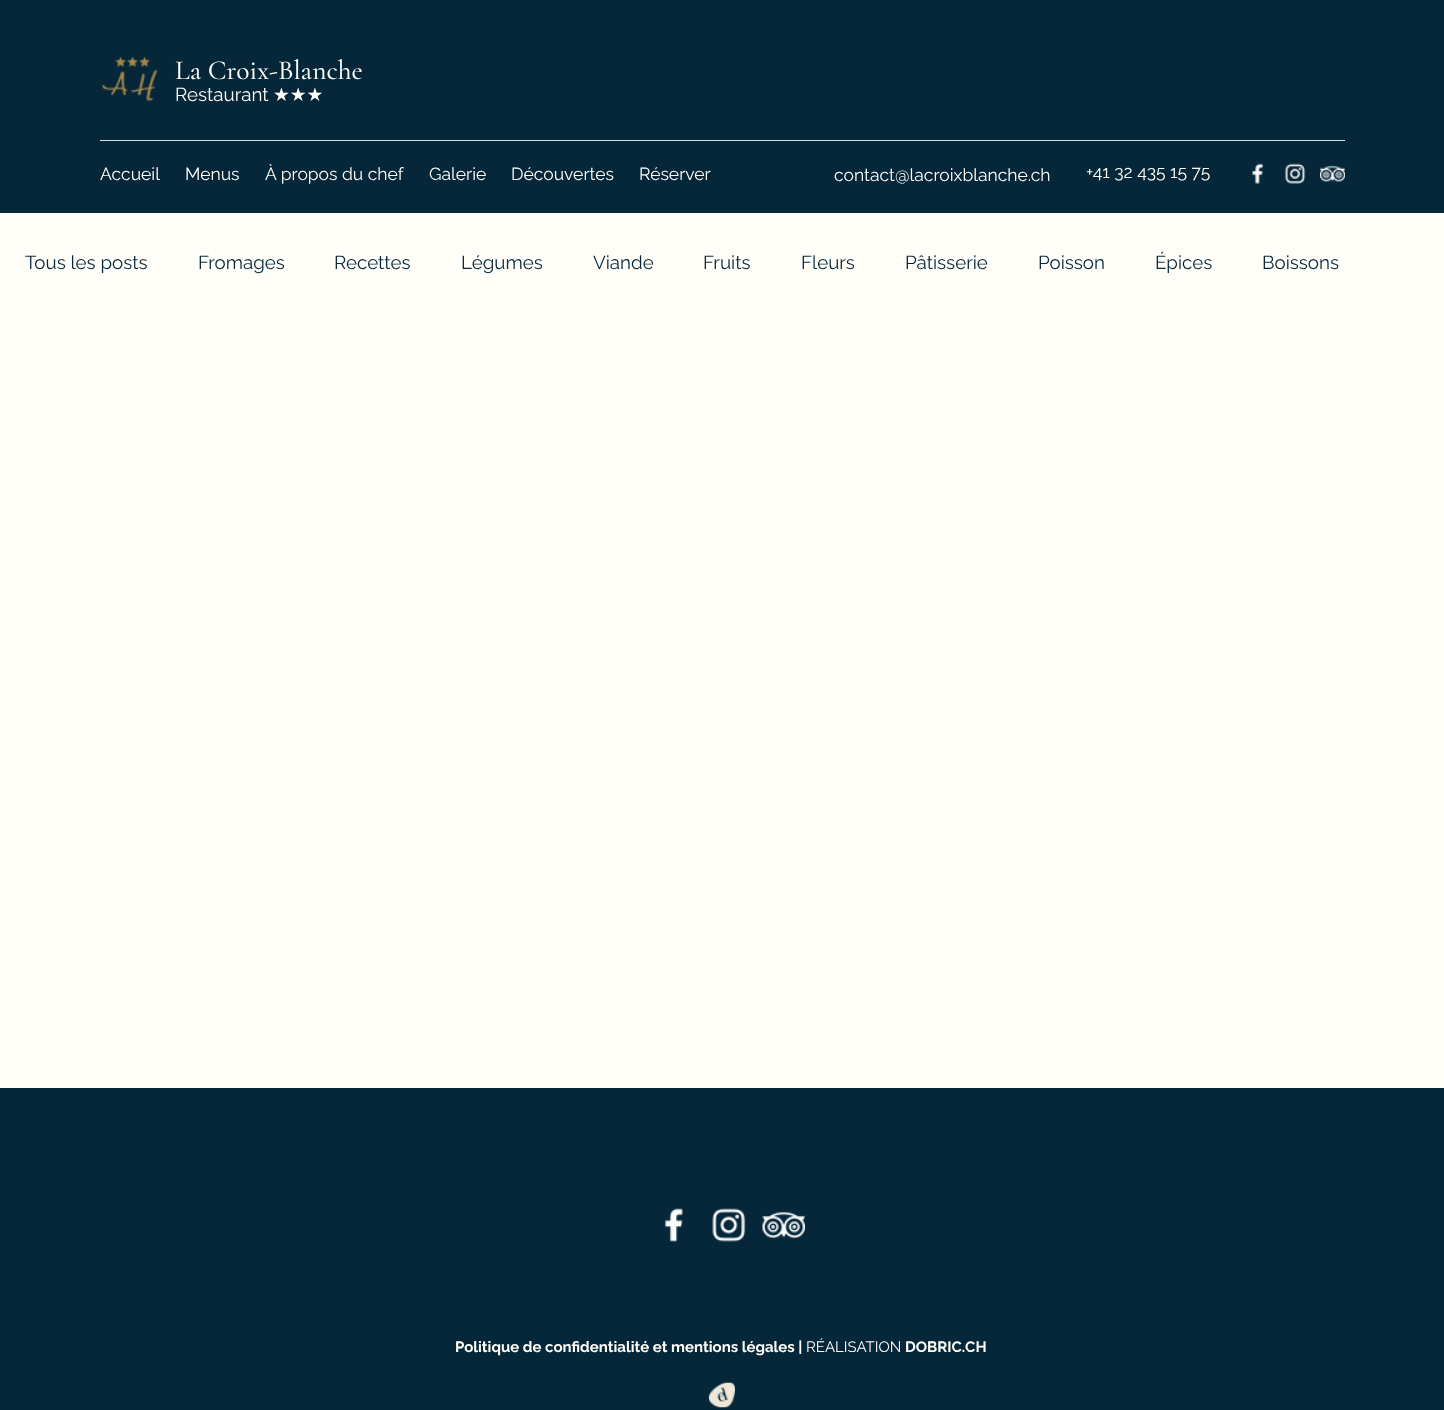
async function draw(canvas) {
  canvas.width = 1444
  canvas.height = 1410
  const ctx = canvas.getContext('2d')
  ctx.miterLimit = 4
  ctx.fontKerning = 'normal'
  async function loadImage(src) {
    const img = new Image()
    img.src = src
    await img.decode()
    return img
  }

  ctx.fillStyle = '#06273a'
  ctx.fillRect(0, 0, 1444, 1410)
  ctx.drawImage(await loadImage('image0.png'), 102, 56, 56, 46)
  ctx.font = '500 27.5px Cormorant Garamond'
  ctx.fillStyle = '#fffef8'
  ctx.fillText('La Croix-Blanche', 175, 79)
  ctx.font = '18.75px Raleway'
  ctx.fillText('Restaurant', 175, 101)
  ctx.font = '18.75px DejaVu Sans'
  ctx.fillText('★★★', 273, 101)
  ctx.fillStyle = '#dadedc'
  ctx.fillRect(100, 140, 1245, 1)
  ctx.font = '17.5px Raleway'
  ctx.fillStyle = '#fffef8'
  ctx.fillText('Accueil', 100, 180)
  ctx.fillText('Menus', 185, 180)
  ctx.fillText('À propos du chef', 265, 180)
  ctx.fillText('Galerie', 429, 180)
  ctx.fillText('Découvertes', 511, 180)
  ctx.fillText('Réserver', 639, 180)
  ctx.fillText('contact@lacroixblanche.ch', 834, 181)
  ctx.fillText('+41 32 435 15 75', 1086, 178)
  ctx.drawImage(await loadImage('image1.png'), 1252, 163, 12, 21)
  ctx.drawImage(await loadImage('image2.png'), 1284, 163, 22, 21)
  ctx.drawImage(await loadImage('image3.png'), 1320, 165, 25, 17)
  ctx.fillRect(0, 213, 1444, 875)
  ctx.font = '18.75px Raleway'
  ctx.fillStyle = '#06273a'
  ctx.fillText('Tous les posts', 25, 269)
  ctx.fillText('Fromages', 198, 269)
  ctx.fillText('Recettes', 334, 269)
  ctx.fillText('Légumes', 461, 269)
  ctx.fillText('Viande', 593, 269)
  ctx.fillText('Fruits', 703, 269)
  ctx.fillText('Fleurs', 801, 269)
  ctx.fillText('Pâtisserie', 905, 269)
  ctx.fillText('Poisson', 1038, 269)
  ctx.fillText('Épices', 1155, 269)
  ctx.fillText('Boissons', 1262, 269)
  ctx.drawImage(await loadImage('image4.png'), 664, 1208, 19, 34)
  ctx.drawImage(await loadImage('image5.png'), 712, 1208, 34, 34)
  ctx.drawImage(await loadImage('image6.png'), 762, 1211, 43, 28)
  ctx.font = 'bold 15px Raleway'
  ctx.fillStyle = '#fffef8'
  ctx.fillText('Politique de confidentialité et mentions légales |', 455, 1352)
  ctx.font = '15px Raleway'
  ctx.fillText('RÉALISATION', 806, 1352)
  ctx.font = 'bold 15px Raleway'
  ctx.fillText('DOBRIC.CH', 905, 1352)
  ctx.drawImage(await loadImage('image7.png'), 708, 1382, 27, 26)
}

draw(document.querySelector('canvas'))
